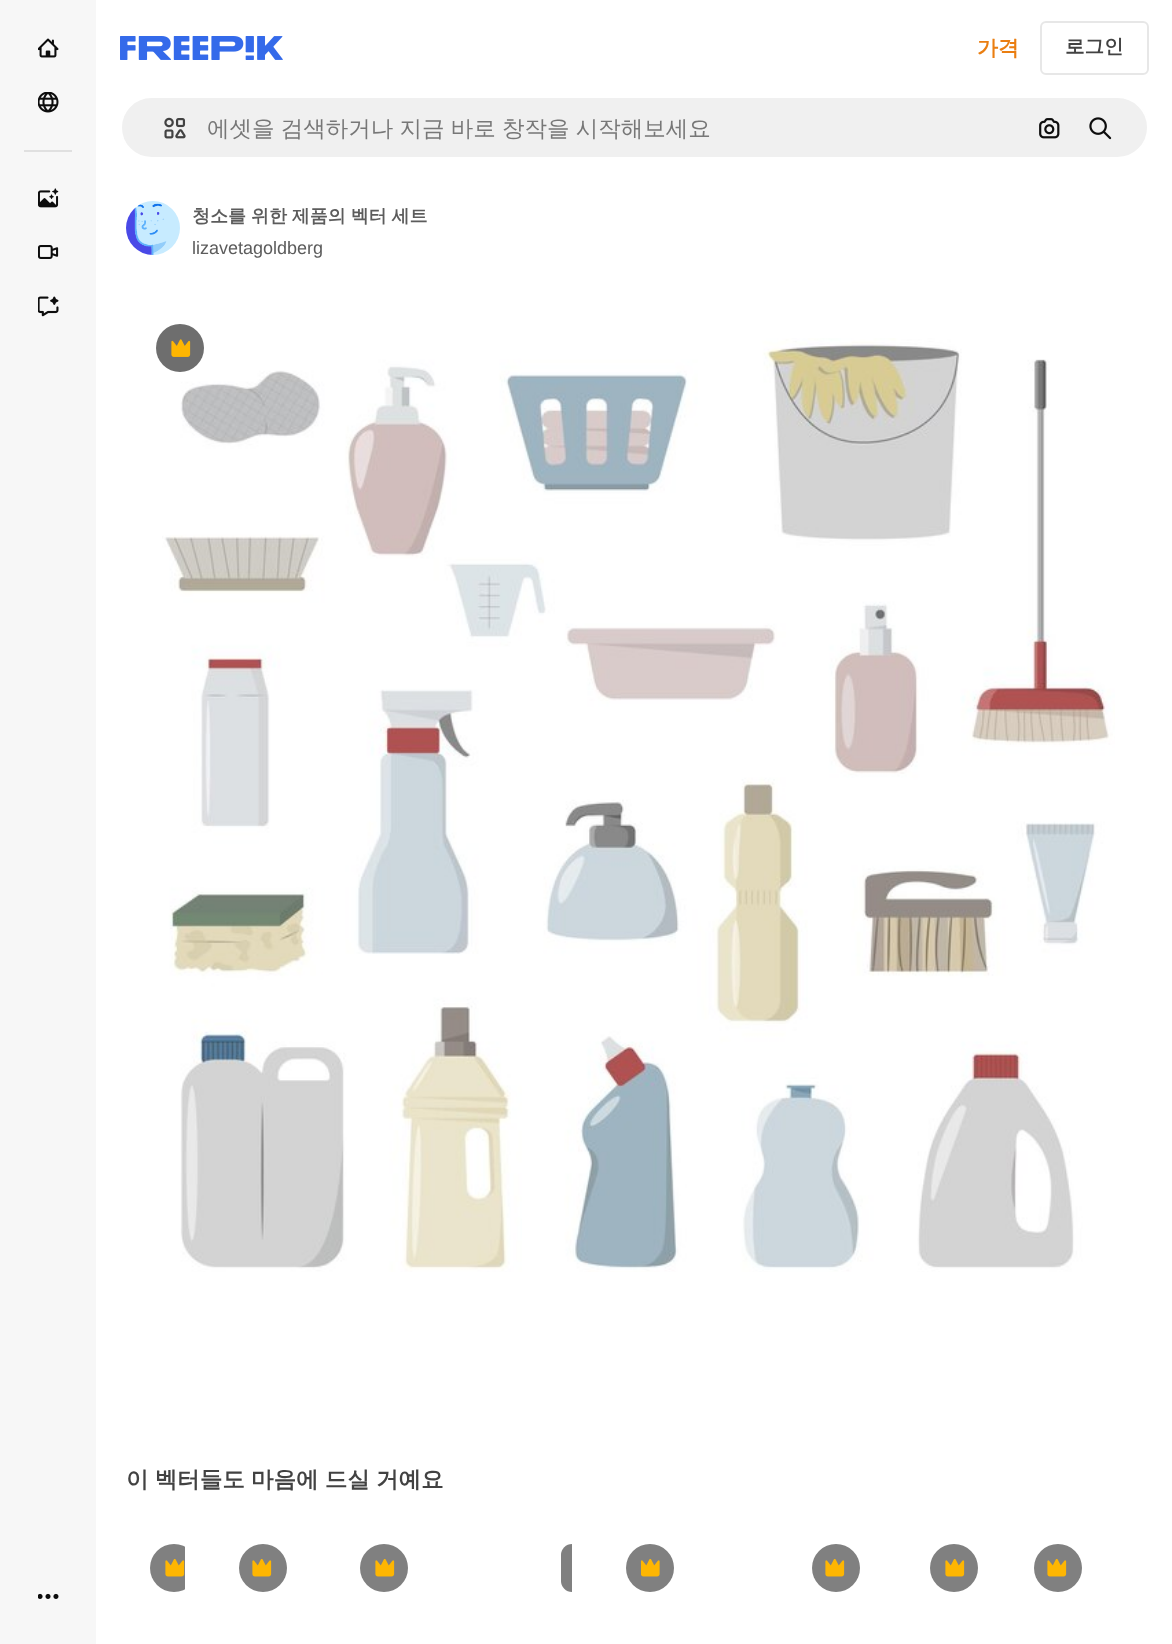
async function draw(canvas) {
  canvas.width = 1172
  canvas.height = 1644
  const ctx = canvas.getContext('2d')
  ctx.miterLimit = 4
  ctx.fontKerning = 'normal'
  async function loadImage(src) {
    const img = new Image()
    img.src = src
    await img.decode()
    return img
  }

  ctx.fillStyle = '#fff'
  ctx.fillRect(0, 0, 1172, 1644)
  ctx.fillStyle = '#f7f7f7'
  ctx.fillRect(0, 0, 96, 1644)
  ctx.drawImage(await loadImage('image0.png'), 38, 38, 21, 20)
  ctx.drawImage(await loadImage('image1.png'), 38, 92, 21, 21)
  ctx.fillStyle = '#e0e0e0'
  ctx.fillRect(24, 150, 48, 2)
  ctx.drawImage(await loadImage('image2.png'), 38, 188, 21, 20)
  ctx.drawImage(await loadImage('image3.png'), 38, 245, 21, 14)
  ctx.drawImage(await loadImage('image4.png'), 38, 296, 21, 21)
  ctx.drawImage(await loadImage('image5.png'), 38, 1593, 21, 6)
  ctx.drawImage(await loadImage('image6.png'), 120, 36, 163, 24)
  ctx.font = 'bold 21px WenQuanYi Zen Hei'
  ctx.fillStyle = '#ea7e11'
  ctx.fillText('가격', 977, 55)
  ctx.beginPath()
  ctx.roundRect(1041, 22, 107, 52, 5)
  ctx.strokeStyle = '#e7e7e7'
  ctx.lineWidth = 2
  ctx.stroke()
  ctx.font = 'bold 19.5px WenQuanYi Zen Hei'
  ctx.fillStyle = '#424242'
  ctx.fillText('로그인', 1065, 53)
  ctx.fillStyle = '#f0f0f0'
  ctx.beginPath()
  ctx.roundRect(121, 97, 1027, 61, 30.5)
  ctx.fill()
  ctx.strokeStyle = '#fff'
  ctx.stroke()
  ctx.drawImage(await loadImage('image7.png'), 164, 117, 22, 22)
  ctx.wordSpacing = '-0.5px'
  ctx.font = '500 22.5px WenQuanYi Zen Hei'
  ctx.fillStyle = '#777'
  ctx.fillText('에셋을 검색하거나 지금 바로 창작을 시작해보세요', 207, 136)
  ctx.drawImage(await loadImage('image8.png'), 1039, 118, 21, 21)
  ctx.drawImage(await loadImage('image9.png'), 1089, 117, 23, 23)
  ctx.drawImage(await loadImage('image10.png'), 126, 201, 54, 54)
  ctx.font = 'bold 18px WenQuanYi Zen Hei'
  ctx.fillStyle = '#5c5c5c'
  ctx.fillText('청소를 위한 제품의 벡터 세트', 192, 222)
  ctx.wordSpacing = '0px'
  ctx.font = '18px Liberation Sans'
  ctx.fillText('lizavetagoldberg', 192, 254)
  ctx.drawImage(await loadImage('image12.png'), 162, 338, 953, 934)
  ctx.fillStyle = '#6e6e6e'
  ctx.beginPath()
  ctx.arc(180, 348, 24, 0, 2 * Math.PI)
  ctx.fill()
  ctx.drawImage(await loadImage('image11.png'), 171, 339, 20, 18)
  ctx.wordSpacing = '-0.5px'
  ctx.font = 'bold 22.5px WenQuanYi Zen Hei'
  ctx.fillStyle = '#424242'
  ctx.fillText('이 벡터들도 마음에 드실 거예요', 126, 1487)
  ctx.save()
  ctx.beginPath()
  ctx.roundRect(126, 1520, 59, 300, 24)
  ctx.clip()
  ctx.fillStyle = '#808080'
  ctx.beginPath()
  ctx.arc(174, 1568, 24, 0, 2 * Math.PI)
  ctx.fill()
  ctx.restore()
  ctx.drawImage(await loadImage('image13.png'), 165, 1559, 20, 18)
  ctx.fillStyle = '#808080'
  ctx.beginPath()
  ctx.arc(263, 1568, 24, 0, 2 * Math.PI)
  ctx.fill()
  ctx.drawImage(await loadImage('image13.png'), 252, 1559, 20, 18)
  ctx.beginPath()
  ctx.arc(384, 1568, 24, 0, 2 * Math.PI)
  ctx.fill()
  ctx.drawImage(await loadImage('image13.png'), 375, 1559, 20, 18)
  ctx.beginPath()
  ctx.roundRect(561, 1544, 11, 48, [24, 0, 0, 24])
  ctx.fill()
  ctx.beginPath()
  ctx.arc(650, 1568, 24, 0, 2 * Math.PI)
  ctx.fill()
  ctx.drawImage(await loadImage('image14.png'), 641, 1559, 19, 18)
  ctx.beginPath()
  ctx.arc(836, 1568, 24, 0, 2 * Math.PI)
  ctx.fill()
  ctx.drawImage(await loadImage('image13.png'), 825, 1559, 20, 18)
  ctx.beginPath()
  ctx.arc(954, 1568, 24, 0, 2 * Math.PI)
  ctx.fill()
  ctx.drawImage(await loadImage('image13.png'), 945, 1559, 20, 18)
  ctx.beginPath()
  ctx.arc(1058, 1568, 24, 0, 2 * Math.PI)
  ctx.fill()
  ctx.drawImage(await loadImage('image13.png'), 1047, 1559, 20, 18)
}

draw(document.querySelector('canvas'))
